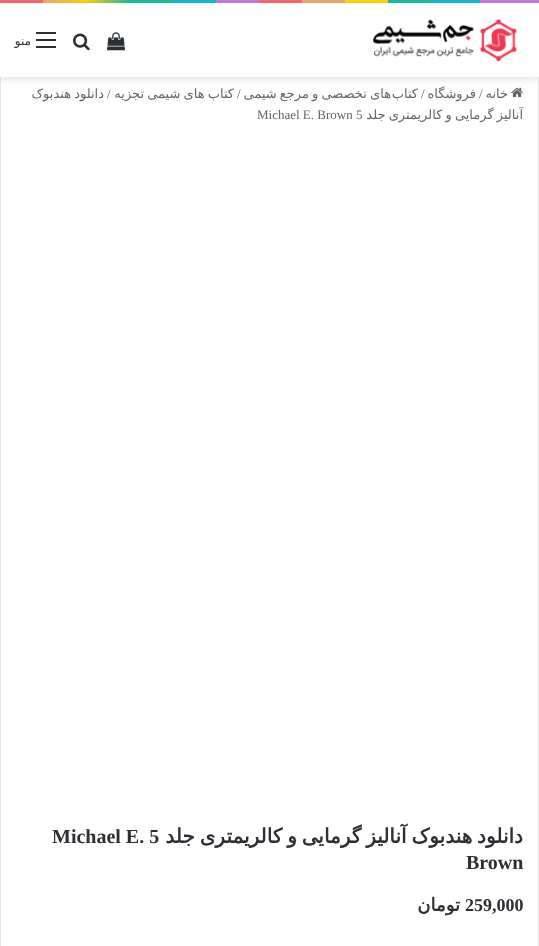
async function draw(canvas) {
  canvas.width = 539
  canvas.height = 946
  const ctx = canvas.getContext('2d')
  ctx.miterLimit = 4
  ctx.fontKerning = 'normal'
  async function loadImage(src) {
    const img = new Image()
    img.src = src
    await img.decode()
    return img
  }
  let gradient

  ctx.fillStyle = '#fff'
  ctx.fillRect(0, 0, 539, 946)
  gradient = ctx.createLinearGradient(0, 1.5, 539, 1.5)
  gradient.addColorStop(0, '#f76570')
  gradient.addColorStop(0.08, '#f76570')
  gradient.addColorStop(0.08, '#f3a46b')
  gradient.addColorStop(0.16, '#ffd205')
  gradient.addColorStop(0.24, '#1bbc9b')
  gradient.addColorStop(0.32, '#1bbc9b')
  gradient.addColorStop(0.32, '#14b9d5')
  gradient.addColorStop(0.4, '#14b9d5')
  gradient.addColorStop(0.4, '#c377e4')
  gradient.addColorStop(0.48, '#c377e4')
  gradient.addColorStop(0.48, '#f76570')
  gradient.addColorStop(0.56, '#f76570')
  gradient.addColorStop(0.56, '#f3a46b')
  gradient.addColorStop(0.64, '#f3a46b')
  gradient.addColorStop(0.64, '#ffd205')
  gradient.addColorStop(0.72, '#ffd205')
  gradient.addColorStop(0.72, '#1bbc9b')
  gradient.addColorStop(0.8, '#1bbc9b')
  gradient.addColorStop(0.8, '#14b9d5')
  gradient.addColorStop(0.89, '#14b9d5')
  gradient.addColorStop(0.89, '#c377e4')
  gradient.addColorStop(1, '#c377e4')
  ctx.fillStyle = gradient
  ctx.fillRect(0, 0, 539, 3)
  ctx.strokeStyle = '#e6e6e6'
  ctx.strokeRect(0.5, 62.5, 538, 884)
  ctx.drawImage(await loadImage('image3.png'), 511, 87, 12, 11)
  ctx.fillStyle = '#0000001a'
  ctx.filter = 'blur(3.5px)'
  ctx.beginPath()
  ctx.rect(0, 6, 539, 74)
  ctx.fill()
  ctx.filter = 'none'
  ctx.fillStyle = '#fff'
  ctx.fillRect(0, 3, 539, 74)
  ctx.drawImage(await loadImage('image0.png'), 373, 19, 144, 43)
  ctx.drawImage(await loadImage('image1.png'), 107, 32, 18, 19)
  ctx.drawImage(await loadImage('image2.png'), 73, 33, 17, 18)
  ctx.fillStyle = '#2c2f34'
  ctx.fillRect(36, 39, 20, 2)
  ctx.fillRect(36, 32, 20, 2)
  ctx.fillRect(36, 46, 20, 2)
  ctx.direction = 'rtl'
  ctx.font = '12px DejaVu Sans'
  ctx.fillText('منو', 31, 45)
  ctx.font = '13px DejaVu Sans'
  ctx.fillStyle = '#666'
  ctx.fillText('خانه', 508, 98)
  ctx.direction = 'ltr'
  ctx.font = '13px Liberation Serif'
  ctx.fillText('/', 479, 98)
  ctx.direction = 'rtl'
  ctx.font = '13px DejaVu Sans'
  ctx.fillText('فروشگاه', 476, 98)
  ctx.direction = 'ltr'
  ctx.font = '13px Liberation Serif'
  ctx.fillText('/', 421, 98)
  ctx.direction = 'rtl'
  ctx.font = '13px DejaVu Sans'
  ctx.fillText('کتاب', 418, 98)
  ctx.wordSpacing = '-1px'
  ctx.fillText('های تخصصی و مرجع شیمی', 391, 98)
  ctx.wordSpacing = '0px'
  ctx.direction = 'ltr'
  ctx.font = '13px Liberation Serif'
  ctx.fillText('/', 237, 98)
  ctx.wordSpacing = '-1px'
  ctx.direction = 'rtl'
  ctx.font = '13px DejaVu Sans'
  ctx.fillText('کتاب های شیمی تجزیه', 234, 98)
  ctx.wordSpacing = '0px'
  ctx.direction = 'ltr'
  ctx.font = '13px Liberation Serif'
  ctx.fillText('/', 107, 98)
  ctx.wordSpacing = '-1px'
  ctx.direction = 'rtl'
  ctx.font = '13px DejaVu Sans'
  ctx.fillText('دانلود هندبوک', 104, 98)
  ctx.fillText('آنالیز گرمایی و کالریمتری جلد', 523, 119)
  ctx.wordSpacing = '0px'
  ctx.direction = 'ltr'
  ctx.font = '13px Liberation Serif'
  ctx.fillText('Michael E. Brown 5', 257, 119)
  ctx.wordSpacing = '-1.5px'
  ctx.direction = 'rtl'
  ctx.font = 'bold 20px DejaVu Sans'
  ctx.fillStyle = '#2c2f34'
  ctx.fillText('دانلود هندبوک آنالیز گرمایی و کالریمتری جلد', 523, 843)
  ctx.wordSpacing = '0px'
  ctx.direction = 'ltr'
  ctx.font = 'bold 20px Liberation Serif'
  ctx.fillText('Michael E. 5', 52, 843)
  ctx.fillText('Brown', 466, 869)
  ctx.font = 'bold 18px Liberation Serif'
  ctx.fillText('259,000', 465, 911)
  ctx.direction = 'rtl'
  ctx.font = 'bold 18px DejaVu Sans'
  ctx.fillText('تومان', 460, 911)
}

draw(document.querySelector('canvas'))
